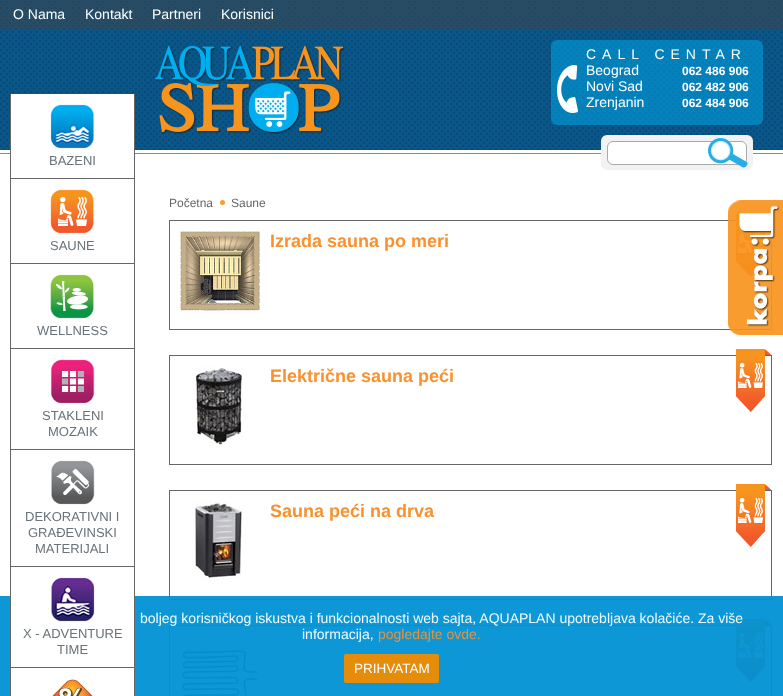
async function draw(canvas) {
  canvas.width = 783
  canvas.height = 696
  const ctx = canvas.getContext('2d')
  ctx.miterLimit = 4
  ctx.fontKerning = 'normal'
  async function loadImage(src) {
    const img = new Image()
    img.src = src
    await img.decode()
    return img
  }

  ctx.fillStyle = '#fff'
  ctx.fillRect(0, 0, 783, 696)
  ctx.fillStyle = '#0a568a'
  ctx.fillRect(0, 0, 783, 150)
  ctx.drawImage(await loadImage('image0.png'), 0, 1, 782, 149)
  ctx.fillStyle = '#44444480'
  ctx.fillRect(0, 0, 783, 30)
  ctx.font = '14px Liberation Sans'
  ctx.fillStyle = '#fff'
  ctx.fillText('O Nama', 13, 19)
  ctx.fillText('Kontakt', 85, 19)
  ctx.fillText('Partneri', 152, 19)
  ctx.fillText('Korisnici', 221, 19)
  ctx.drawImage(await loadImage('image1.png'), 155, 46, 190, 88)
  ctx.fillStyle = '#00aeef80'
  ctx.beginPath()
  ctx.roundRect(551, 40, 212, 85, 6)
  ctx.fill()
  ctx.drawImage(await loadImage('image2.png'), 557, 65, 21, 48)
  ctx.letterSpacing = '6px'
  ctx.fillStyle = '#fff'
  ctx.fillText('CALL CENTAR', 586, 59)
  ctx.letterSpacing = '0px'
  ctx.fillText('Beograd', 586, 75)
  ctx.font = 'bold 12px Liberation Sans'
  ctx.fillText('062 486 906', 682, 75)
  ctx.font = '14px Liberation Sans'
  ctx.fillText('Novi Sad', 586, 91)
  ctx.font = 'bold 12px Liberation Sans'
  ctx.fillText('062 482 906', 682, 91)
  ctx.font = '14px Liberation Sans'
  ctx.fillText('Zrenjanin', 586, 107)
  ctx.font = 'bold 12px Liberation Sans'
  ctx.fillText('062 484 906', 682, 107)
  ctx.fillStyle = '#26aee4'
  ctx.fillRect(0, 153, 783, 1)
  ctx.fillStyle = '#f2f2f2'
  ctx.beginPath()
  ctx.roundRect(602.5, 136.5, 149, 32, 4.5)
  ctx.fill()
  ctx.strokeStyle = '#f2f2f2'
  ctx.lineWidth = 3
  ctx.stroke()
  ctx.fillStyle = '#fff'
  ctx.beginPath()
  ctx.roundRect(607.5, 141.5, 139, 23, 5.5)
  ctx.fill()
  ctx.strokeStyle = '#aaa'
  ctx.lineWidth = 1
  ctx.stroke()
  ctx.drawImage(await loadImage('image3.png'), 708, 138, 40, 30)
  ctx.fillRect(11, 94, 123, 60)
  ctx.strokeStyle = '#666'
  ctx.strokeRect(169.5, 490.5, 602, 109)
  ctx.strokeRect(169.5, 625.5, 602, 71)
  ctx.drawImage(await loadImage('image16.png'), 180, 636, 80, 60)
  ctx.drawImage(await loadImage('image14.png'), 736, 619, 35, 63)
  ctx.fillStyle = '#0091d5f2'
  ctx.fillRect(0, 596, 783, 100)
  ctx.fillStyle = '#666'
  ctx.fillRect(134, 94, 1, 602)
  ctx.fillRect(10, 178, 125, 1)
  ctx.fillRect(10, 94, 1, 85)
  ctx.drawImage(await loadImage('image4.png'), 50, 104, 44, 45)
  ctx.font = '13px Liberation Sans'
  ctx.fillStyle = '#68737a'
  ctx.fillText('BAZENI', 49, 165)
  ctx.fillStyle = '#666'
  ctx.fillRect(10, 263, 125, 1)
  ctx.fillRect(10, 179, 1, 85)
  ctx.drawImage(await loadImage('image5.png'), 50, 189, 44, 45)
  ctx.fillStyle = '#68737a'
  ctx.fillText('SAUNE', 50, 250)
  ctx.fillStyle = '#666'
  ctx.fillRect(10, 348, 125, 1)
  ctx.fillRect(10, 264, 1, 85)
  ctx.drawImage(await loadImage('image6.png'), 50, 274, 44, 45)
  ctx.fillStyle = '#68737a'
  ctx.fillText('WELLNESS', 37, 335)
  ctx.fillStyle = '#666'
  ctx.fillRect(10, 449, 125, 1)
  ctx.fillRect(10, 349, 1, 101)
  ctx.drawImage(await loadImage('image7.png'), 50, 359, 45, 45)
  ctx.fillStyle = '#68737a'
  ctx.fillText('STAKLENI', 42, 420)
  ctx.fillText('MOZAIK', 48, 436)
  ctx.fillStyle = '#666'
  ctx.fillRect(10, 566, 125, 1)
  ctx.fillRect(10, 450, 1, 117)
  ctx.drawImage(await loadImage('image8.png'), 51, 460, 44, 45)
  ctx.fillStyle = '#68737a'
  ctx.fillText('DEKORATIVNI I', 25, 521)
  ctx.fillText('GRAĐEVINSKI', 28, 537)
  ctx.fillText('MATERIJALI', 35, 553)
  ctx.fillStyle = '#fff'
  ctx.fillRect(11, 596, 123, 71)
  ctx.fillStyle = '#666'
  ctx.fillRect(10, 667, 125, 1)
  ctx.fillRect(10, 567, 1, 129)
  ctx.drawImage(await loadImage('image9.png'), 51, 577, 44, 45)
  ctx.fillStyle = '#68737a'
  ctx.fillText('X - ADVENTURE', 23, 638)
  ctx.fillText('TIME', 57, 654)
  ctx.fillStyle = '#fff'
  ctx.fillRect(11, 668, 123, 28)
  ctx.drawImage(await loadImage('image10.png'), 52, 679, 41, 17)
  ctx.font = '12px Liberation Sans'
  ctx.fillStyle = '#666'
  ctx.fillText('Početna', 169, 207)
  ctx.fillStyle = '#f79c2f'
  ctx.beginPath()
  ctx.arc(222.5, 202.5, 2.5, 0, 2 * Math.PI)
  ctx.fill()
  ctx.fillStyle = '#666'
  ctx.fillText('Saune', 231, 207)
  ctx.strokeRect(169.5, 220.5, 602, 109)
  ctx.drawImage(await loadImage('image11.png'), 180, 231, 80, 80)
  ctx.font = 'bold 18px Liberation Sans'
  ctx.fillStyle = '#f9912e'
  ctx.fillText('Izrada sauna po meri', 270, 247)
  ctx.drawImage(await loadImage('image12.png'), 736, 214, 29, 63)
  ctx.strokeRect(169.5, 355.5, 602, 109)
  ctx.drawImage(await loadImage('image13.png'), 180, 366, 80, 80)
  ctx.fillText('Električne sauna peći', 270, 382)
  ctx.drawImage(await loadImage('image14.png'), 736, 349, 35, 63)
  ctx.drawImage(await loadImage('image15.png'), 180, 501, 80, 80)
  ctx.fillText('Sauna peći na drva', 270, 517)
  ctx.drawImage(await loadImage('image14.png'), 736, 484, 35, 63)
  ctx.drawImage(await loadImage('image17.png'), 728, 200, 55, 135)
  ctx.font = '14px Liberation Sans'
  ctx.fillStyle = '#f3fafd'
  ctx.fillText('boljeg korisničkog iskustva i funkcionalnosti web sajta, AQUAPLAN upotrebljava kolačiće. Za više', 140, 623)
  ctx.fillText('informacija,', 302, 639)
  ctx.fillStyle = '#ed9136'
  ctx.fillText('pogledajte ovde.', 378, 639)
  ctx.fillStyle = '#f28b00f2'
  ctx.beginPath()
  ctx.roundRect(344, 654, 95, 29, 2)
  ctx.fill()
  ctx.font = '13.5px Liberation Sans'
  ctx.fillStyle = '#fff'
  ctx.fillText('PRIHVATAM', 354, 673)
}

draw(document.querySelector('canvas'))
